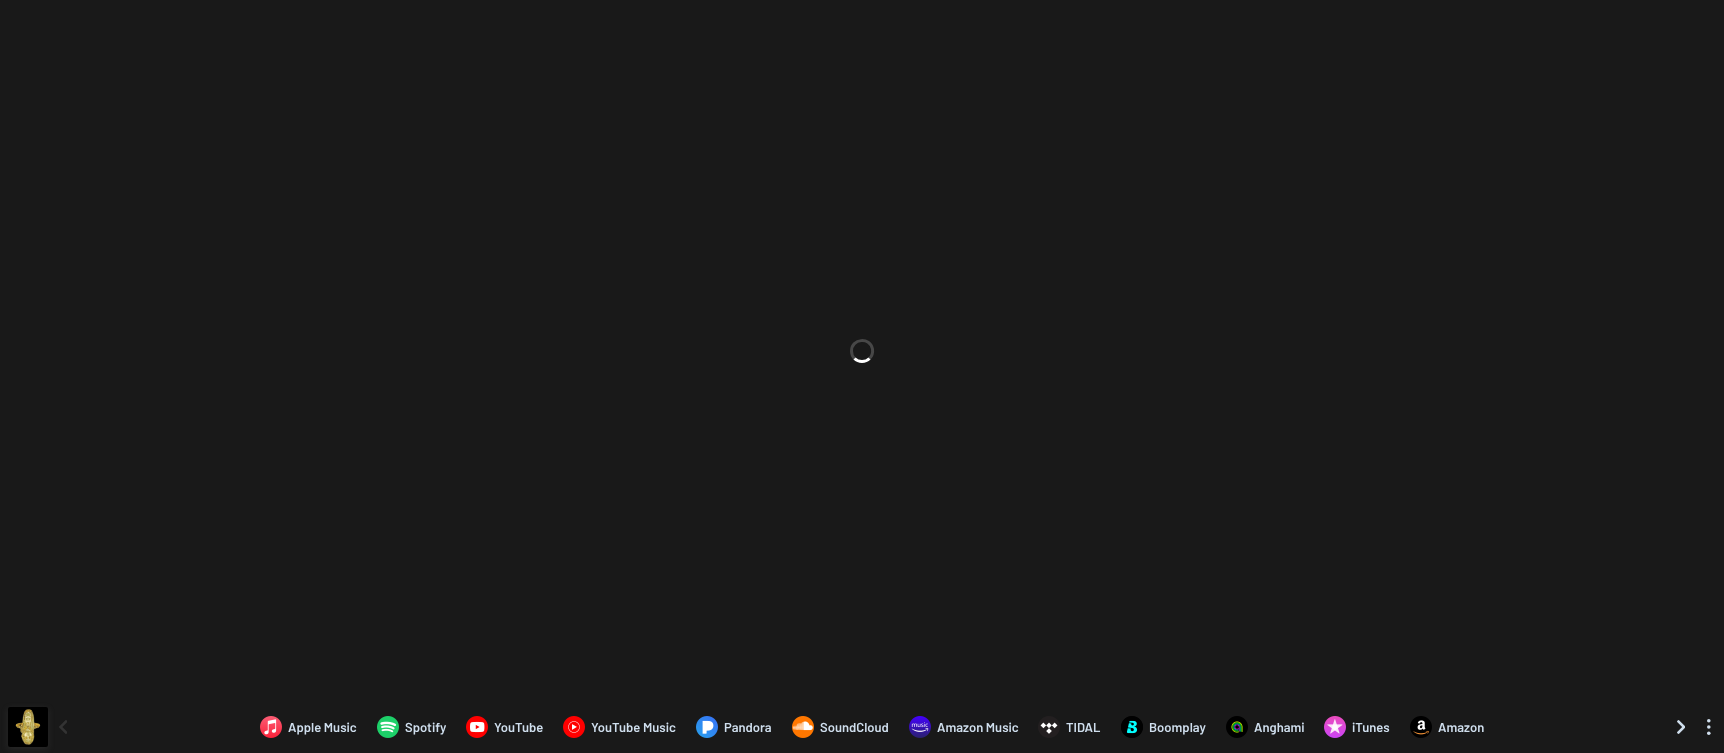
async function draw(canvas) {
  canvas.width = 1724
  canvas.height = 753
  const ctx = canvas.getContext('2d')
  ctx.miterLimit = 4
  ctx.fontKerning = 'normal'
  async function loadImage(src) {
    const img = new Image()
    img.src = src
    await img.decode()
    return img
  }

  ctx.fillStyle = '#191919'
  ctx.fillRect(0, 0, 1724, 753)
  ctx.beginPath()
  ctx.moveTo(869.5, 358.5)
  ctx.bezierCurveTo(865.5, 362.5, 858.5, 362.5, 854.5, 358.5)
  ctx.strokeStyle = '#fff'
  ctx.lineWidth = 3
  ctx.stroke()
  ctx.beginPath()
  ctx.moveTo(854.5, 358.5)
  ctx.bezierCurveTo(852.5, 356.5, 851.5, 354, 851.5, 351)
  ctx.bezierCurveTo(851.5, 338.5, 870, 336.5, 872.5, 349)
  ctx.bezierCurveTo(873, 352.5, 872, 356, 869.5, 358.5)
  ctx.strokeStyle = '#ffffff33'
  ctx.stroke()
  ctx.fillStyle = '#69696933'
  ctx.filter = 'blur(3px)'
  ctx.beginPath()
  ctx.rect(8, 709, 40, 40)
  ctx.fill()
  ctx.filter = 'none'
  ctx.drawImage(await loadImage('image0.png'), 8, 707, 40, 40)
  ctx.drawImage(await loadImage('image1.png'), 59, 720, 8, 14)
  ctx.drawImage(await loadImage('image2.png'), 260, 716, 22, 22)
  ctx.font = '600 13px Barlow'
  ctx.fillStyle = '#cfdeed'
  ctx.fillText('Apple Music', 288, 732)
  ctx.drawImage(await loadImage('image3.png'), 377, 716, 22, 22)
  ctx.fillText('Spotify', 405, 732)
  ctx.drawImage(await loadImage('image4.png'), 466, 716, 22, 22)
  ctx.fillText('YouTube', 494, 732)
  ctx.drawImage(await loadImage('image5.png'), 563, 716, 22, 22)
  ctx.fillText('YouTube Music', 591, 732)
  ctx.drawImage(await loadImage('image6.png'), 696, 716, 22, 22)
  ctx.fillText('Pandora', 724, 732)
  ctx.drawImage(await loadImage('image7.png'), 792, 716, 22, 22)
  ctx.fillText('SoundCloud', 820, 732)
  ctx.drawImage(await loadImage('image8.png'), 909, 716, 22, 22)
  ctx.fillText('Amazon Music', 937, 732)
  ctx.drawImage(await loadImage('image9.png'), 1038, 716, 22, 22)
  ctx.fillText('TIDAL', 1066, 732)
  ctx.drawImage(await loadImage('image10.png'), 1121, 716, 22, 22)
  ctx.fillText('Boomplay', 1149, 732)
  ctx.drawImage(await loadImage('image11.png'), 1226, 716, 22, 22)
  ctx.fillText('Anghami', 1254, 732)
  ctx.drawImage(await loadImage('image12.png'), 1324, 716, 22, 22)
  ctx.fillText('iTunes', 1352, 732)
  ctx.drawImage(await loadImage('image13.png'), 1410, 716, 22, 22)
  ctx.fillText('Amazon', 1438, 732)
  ctx.drawImage(await loadImage('image14.png'), 1677, 720, 8, 14)
  ctx.beginPath()
  ctx.arc(1708.8, 733.2, 1.8, 0, 2 * Math.PI)
  ctx.fill()
  ctx.beginPath()
  ctx.arc(1708.8, 727, 1.8, 0, 2 * Math.PI)
  ctx.fill()
  ctx.beginPath()
  ctx.arc(1708.8, 720.8, 1.8, 0, 2 * Math.PI)
  ctx.fill()
}

draw(document.querySelector('canvas'))
